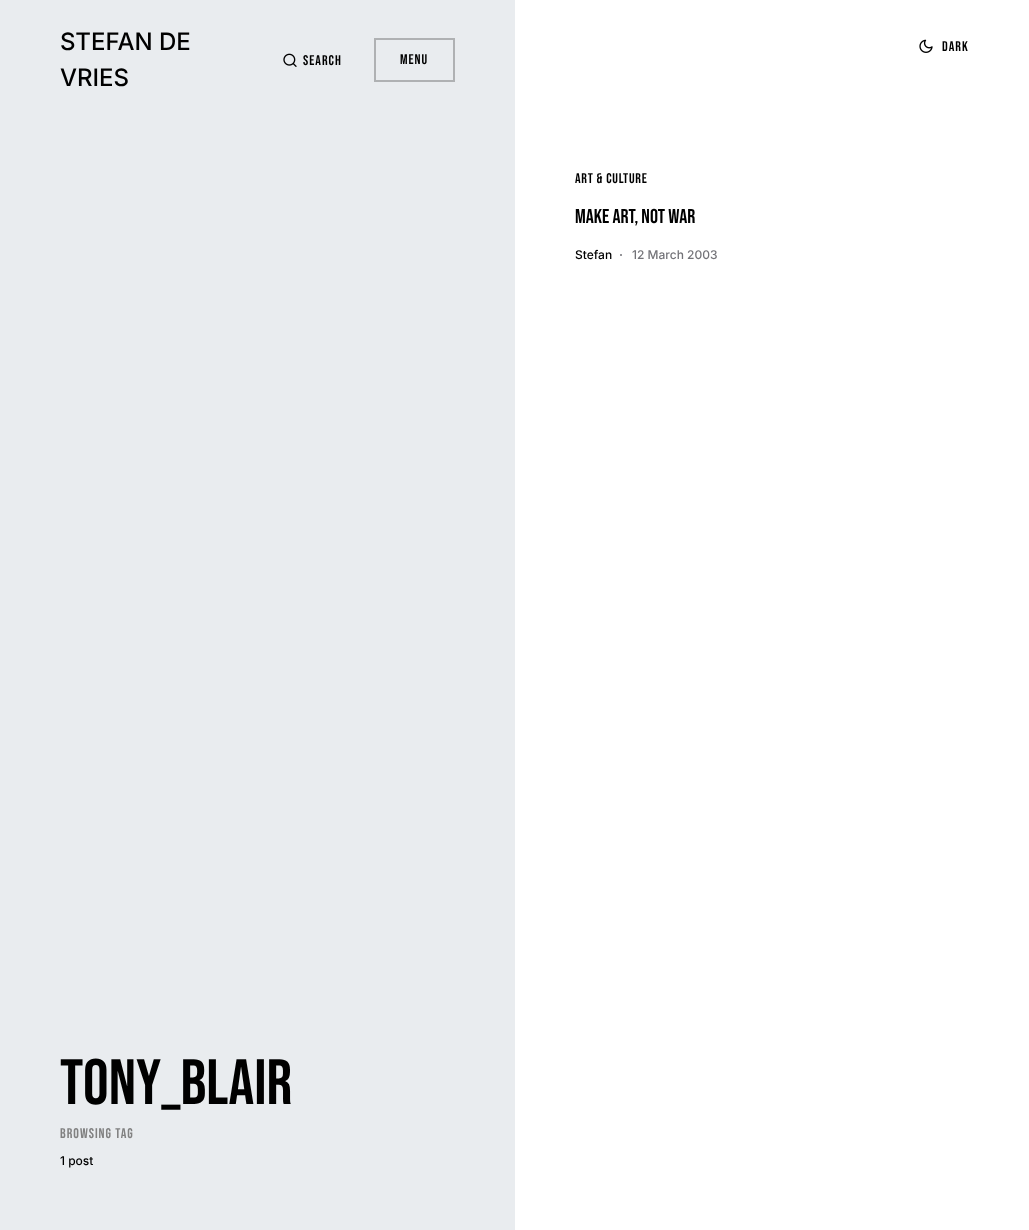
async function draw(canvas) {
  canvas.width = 1029
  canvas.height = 1230
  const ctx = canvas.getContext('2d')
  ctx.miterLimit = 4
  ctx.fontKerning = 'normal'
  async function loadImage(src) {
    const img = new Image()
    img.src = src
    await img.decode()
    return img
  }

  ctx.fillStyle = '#fff'
  ctx.fillRect(0, 0, 1029, 1230)
  ctx.fillStyle = '#e9ecef'
  ctx.fillRect(0, 0, 515, 1230)
  ctx.font = '500 24px Inter'
  ctx.fillStyle = '#000'
  ctx.fillText('STEFAN DE', 60, 50)
  ctx.fillText('VRIES', 60, 86)
  ctx.drawImage(await loadImage('image0.png'), 283, 53, 14, 14)
  ctx.letterSpacing = '1px'
  ctx.font = '14px Bebas Neue'
  ctx.fillText('Search', 303, 65)
  ctx.strokeStyle = '#afb1b3'
  ctx.lineWidth = 2
  ctx.strokeRect(375, 39, 79, 42)
  ctx.fillText('Menu', 400, 64)
  ctx.letterSpacing = '0px'
  ctx.font = '64px Bebas Neue'
  ctx.fillText('tony_blair', 60, 1104)
  ctx.letterSpacing = '1px'
  ctx.font = '14px Bebas Neue'
  ctx.fillStyle = '#818181'
  ctx.fillText('Browsing Tag', 60, 1138)
  ctx.letterSpacing = '0px'
  ctx.font = '500 12px Inter'
  ctx.fillStyle = '#000'
  ctx.fillText('1 post', 60, 1165)
  ctx.drawImage(await loadImage('image1.png'), 919, 39, 14, 14)
  ctx.letterSpacing = '1px'
  ctx.font = '14px Bebas Neue'
  ctx.fillText('Dark', 942, 51)
  ctx.letterSpacing = '0.75px'
  ctx.fillText('Art & Culture', 575, 183)
  ctx.letterSpacing = '0px'
  ctx.font = '20px Bebas Neue'
  ctx.fillText('Make art, not war', 575, 223)
  ctx.font = '500 12px Inter'
  ctx.fillText('Stefan', 575, 259)
  ctx.fillStyle = '#737378'
  ctx.beginPath()
  ctx.arc(621, 255, 1, 0, 2 * Math.PI)
  ctx.fill()
  ctx.fillText('12 March 2003', 632, 259)
}

draw(document.querySelector('canvas'))
